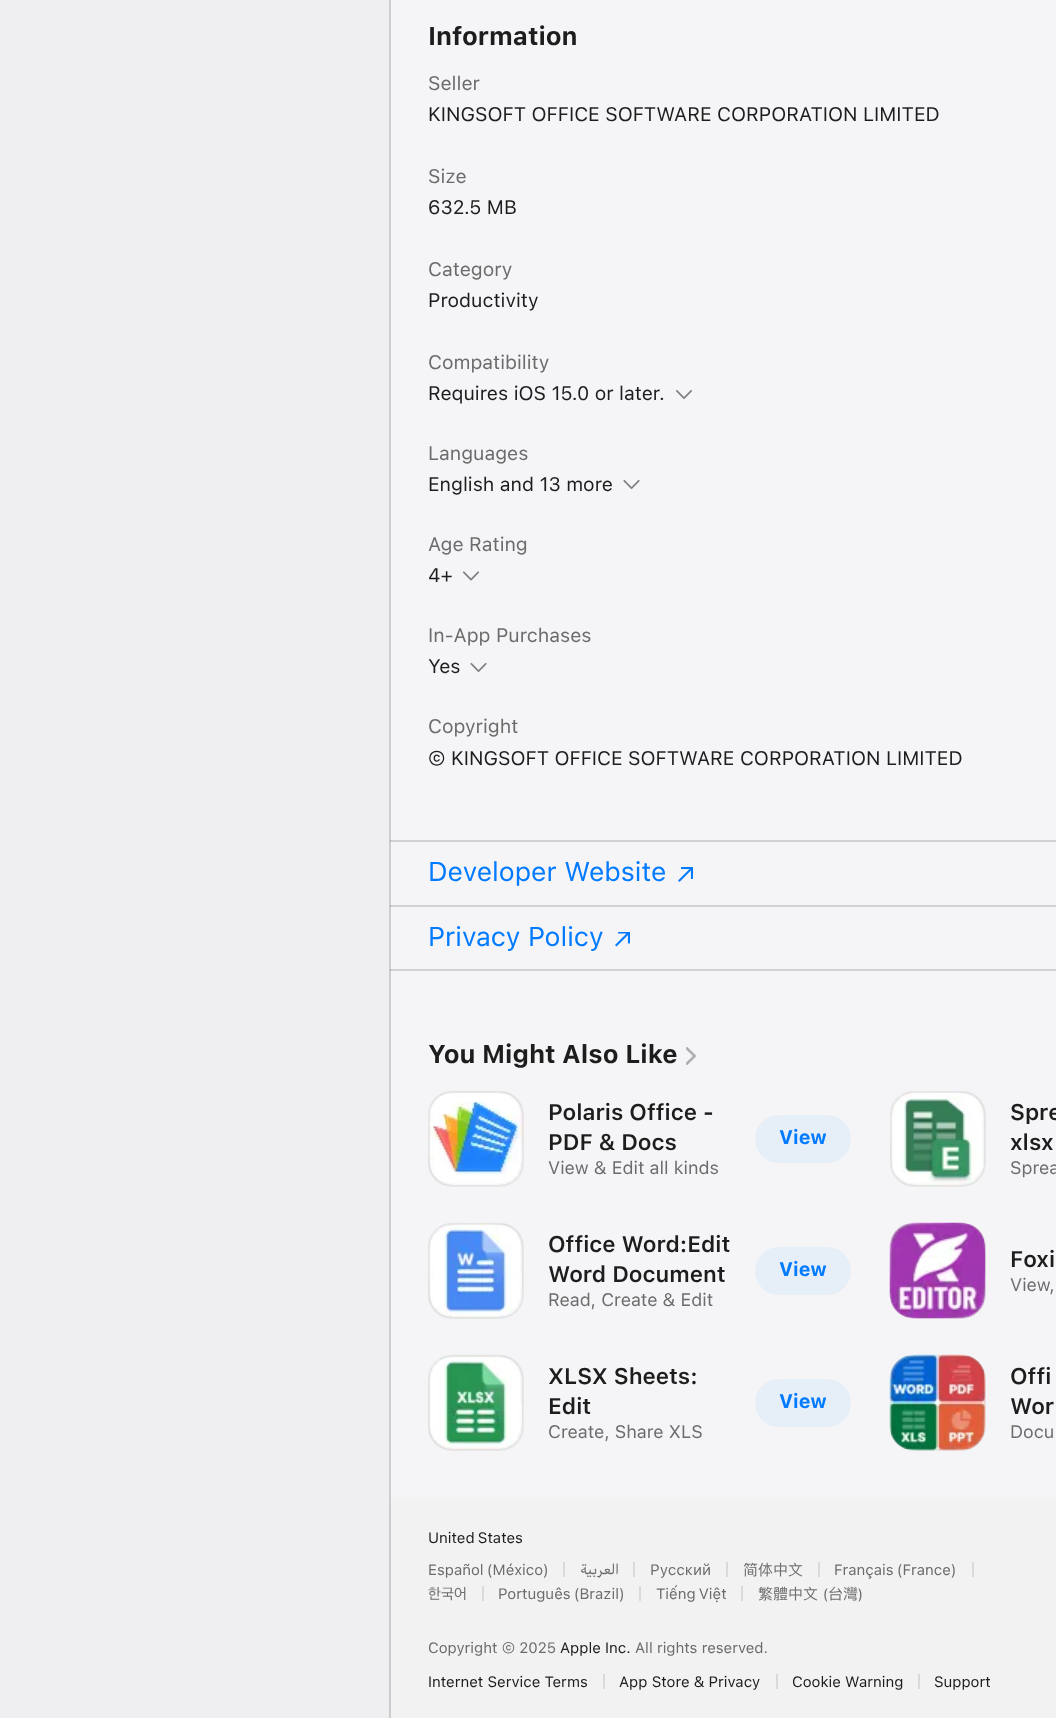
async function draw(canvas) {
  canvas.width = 1056
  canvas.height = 1718
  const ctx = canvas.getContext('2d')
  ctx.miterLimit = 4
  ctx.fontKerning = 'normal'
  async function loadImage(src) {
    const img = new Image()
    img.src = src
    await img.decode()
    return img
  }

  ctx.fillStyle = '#f5f5f7'
  ctx.fillRect(0, 0, 1056, 1718)
  ctx.fillStyle = '#d0d0d2'
  ctx.fillRect(390, 0, 1, 1499)
  ctx.fillStyle = '#efeff1'
  ctx.fillRect(0, 0, 389, 1718)
  ctx.fillStyle = '#cbcbcd'
  ctx.fillRect(389, 0, 1, 1718)
  ctx.font = 'bold 25.5px SF'
  ctx.fillStyle = '#1d1d1e'
  ctx.fillText('Information', 428, 45)
  ctx.font = '19.5px SF'
  ctx.fillStyle = '#6c6c6d'
  ctx.fillText('Seller', 428, 90)
  ctx.fillStyle = '#1d1d1e'
  ctx.fillText('KINGSOFT OFFICE SOFTWARE CORPORATION LIMITED', 428, 121)
  ctx.fillStyle = '#6c6c6d'
  ctx.fillText('Size', 428, 183)
  ctx.fillStyle = '#1d1d1e'
  ctx.fillText('632.5 MB', 428, 214)
  ctx.fillStyle = '#6c6c6d'
  ctx.fillText('Category', 428, 276)
  ctx.fillStyle = '#1d1d1e'
  ctx.fillText('Productivity', 428, 307)
  ctx.fillStyle = '#6c6c6d'
  ctx.fillText('Compatibility', 428, 369)
  ctx.fillStyle = '#1d1d1e'
  ctx.fillText('Requires iOS 15.0 or later.', 428, 400)
  ctx.drawImage(await loadImage('image0.png'), 676, 390, 16, 9)
  ctx.fillStyle = '#6c6c6d'
  ctx.fillText('Languages', 428, 460)
  ctx.fillStyle = '#1d1d1e'
  ctx.fillText('English and 13 more', 428, 491)
  ctx.drawImage(await loadImage('image1.png'), 623, 480, 17, 9)
  ctx.fillStyle = '#6c6c6d'
  ctx.fillText('Age Rating', 428, 551)
  ctx.fillStyle = '#1d1d1e'
  ctx.fillText('4+', 428, 582)
  ctx.drawImage(await loadImage('image2.png'), 463, 571, 16, 10)
  ctx.fillStyle = '#6c6c6d'
  ctx.fillText('In-App Purchases', 428, 642)
  ctx.fillStyle = '#1d1d1e'
  ctx.fillText('Yes', 428, 673)
  ctx.drawImage(await loadImage('image1.png'), 470, 663, 17, 9)
  ctx.fillStyle = '#6c6c6d'
  ctx.fillText('Copyright', 428, 733)
  ctx.fillStyle = '#1d1d1e'
  ctx.fillText('© KINGSOFT OFFICE SOFTWARE CORPORATION LIMITED', 428, 765)
  ctx.fillStyle = '#d1d1d6'
  ctx.fillRect(390, 840, 666, 2)
  ctx.fillStyle = '#b2b2b6'
  ctx.fillRect(390, 840, 1, 2)
  ctx.fillStyle = '#d1d1d6'
  ctx.fillRect(390, 905, 666, 2)
  ctx.fillStyle = '#b2b2b6'
  ctx.fillRect(390, 905, 1, 2)
  ctx.font = '27px "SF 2"'
  ctx.fillStyle = '#007aff'
  ctx.fillText('Developer Website', 428, 881)
  ctx.drawImage(await loadImage('image3.png'), 678, 867, 15, 15)
  ctx.fillStyle = '#d1d1d6'
  ctx.fillRect(390, 969, 666, 2)
  ctx.fillStyle = '#b2b2b6'
  ctx.fillRect(390, 969, 1, 2)
  ctx.fillStyle = '#007aff'
  ctx.fillText('Privacy Policy', 428, 946)
  ctx.drawImage(await loadImage('image4.png'), 615, 932, 15, 15)
  ctx.font = 'bold 25.5px SF'
  ctx.fillStyle = '#1d1d1e'
  ctx.fillText('You Might Also Like', 428, 1063)
  ctx.drawImage(await loadImage('image5.png'), 686, 1047, 10, 18)
  ctx.drawImage(await loadImage('image6.png'), 428, 1091, 96, 95)
  ctx.beginPath()
  ctx.roundRect(429, 1092, 94, 94, 23)
  ctx.strokeStyle = '#8080801a'
  ctx.lineWidth = 2
  ctx.stroke()
  ctx.font = '600 22.5px SF'
  ctx.fillText('Polaris Office -', 548, 1120)
  ctx.fillText('PDF & Docs', 548, 1150)
  ctx.font = '18px SF'
  ctx.fillStyle = '#6c6c6d'
  ctx.fillText('View & Edit all kinds', 548, 1174)
  ctx.fillStyle = '#e6eef7'
  ctx.beginPath()
  ctx.roundRect(755, 1115, 96, 48, 24)
  ctx.fill()
  ctx.font = 'bold 19.5px SF'
  ctx.fillStyle = '#007aff'
  ctx.fillText('View', 779, 1144)
  ctx.drawImage(await loadImage('image7.png'), 890, 1091, 96, 95)
  ctx.beginPath()
  ctx.roundRect(891, 1092, 94, 94, 23)
  ctx.stroke()
  ctx.font = '600 22.5px SF'
  ctx.fillStyle = '#1d1d1e'
  ctx.fillText('Spre', 1010, 1120)
  ctx.fillText('xlsx', 1010, 1150)
  ctx.font = '18px SF'
  ctx.fillStyle = '#6c6c6d'
  ctx.fillText('Sprea', 1010, 1174)
  ctx.drawImage(await loadImage('image8.png'), 428, 1222, 95, 97)
  ctx.beginPath()
  ctx.roundRect(429, 1224, 94, 94, 23)
  ctx.stroke()
  ctx.font = '600 22.5px SF'
  ctx.fillStyle = '#1d1d1e'
  ctx.fillText('Office Word:Edit', 548, 1252)
  ctx.fillText('Word Document', 548, 1282)
  ctx.font = '18px SF'
  ctx.fillStyle = '#6c6c6d'
  ctx.fillText('Read, Create & Edit', 548, 1306)
  ctx.fillStyle = '#e6eef7'
  ctx.beginPath()
  ctx.roundRect(755, 1247, 96, 48, 24)
  ctx.fill()
  ctx.font = 'bold 19.5px SF'
  ctx.fillStyle = '#007aff'
  ctx.fillText('View', 779, 1276)
  ctx.drawImage(await loadImage('image9.png'), 889, 1222, 97, 97)
  ctx.beginPath()
  ctx.roundRect(891, 1224, 94, 94, 23)
  ctx.stroke()
  ctx.font = '600 22.5px SF'
  ctx.fillStyle = '#1d1d1e'
  ctx.fillText('Foxi', 1010, 1267)
  ctx.font = '18px SF'
  ctx.fillStyle = '#6c6c6d'
  ctx.fillText('View,', 1010, 1291)
  ctx.drawImage(await loadImage('image10.png'), 428, 1354, 95, 97)
  ctx.beginPath()
  ctx.roundRect(429, 1356, 94, 94, 23)
  ctx.stroke()
  ctx.font = '600 22.5px SF'
  ctx.fillStyle = '#1d1d1e'
  ctx.fillText('XLSX Sheets:', 548, 1384)
  ctx.fillText('Edit', 548, 1414)
  ctx.font = '18px SF'
  ctx.fillStyle = '#6c6c6d'
  ctx.fillText('Create, Share XLS', 548, 1438)
  ctx.fillStyle = '#e6eef7'
  ctx.beginPath()
  ctx.roundRect(755, 1379, 96, 48, 24)
  ctx.fill()
  ctx.font = 'bold 19.5px SF'
  ctx.fillStyle = '#007aff'
  ctx.fillText('View', 779, 1408)
  ctx.drawImage(await loadImage('image11.png'), 889, 1354, 97, 97)
  ctx.beginPath()
  ctx.roundRect(891, 1356, 94, 94, 23)
  ctx.stroke()
  ctx.font = '600 22.5px SF'
  ctx.fillStyle = '#1d1d1e'
  ctx.fillText('Offi', 1010, 1384)
  ctx.fillText('Wor', 1010, 1414)
  ctx.font = '18px SF'
  ctx.fillStyle = '#6c6c6d'
  ctx.fillText('Docu', 1010, 1438)
  ctx.fillStyle = '#f2f2f2'
  ctx.fillRect(391, 1499, 665, 219)
  ctx.fillStyle = '#cecece'
  ctx.fillRect(390, 1499, 1, 219)
  ctx.wordSpacing = '-1px'
  ctx.font = '15px SF'
  ctx.fillStyle = '#1d1d1e'
  ctx.fillText('United States', 428, 1543)
  ctx.fillStyle = '#6c6c6d'
  ctx.fillText('Español (México)', 428, 1575)
  ctx.fillStyle = '#dadada'
  ctx.fillRect(563, 1562, 2, 15)
  ctx.wordSpacing = '0px'
  ctx.direction = 'rtl'
  ctx.font = '15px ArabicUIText'
  ctx.fillStyle = '#6c6c6d'
  ctx.fillText('العربية', 619, 1575)
  ctx.fillStyle = '#dadada'
  ctx.fillRect(633, 1562, 2, 15)
  ctx.direction = 'ltr'
  ctx.font = '15px SF'
  ctx.fillStyle = '#6c6c6d'
  ctx.fillText('Русский', 650, 1575)
  ctx.fillStyle = '#dadada'
  ctx.fillRect(726, 1562, 2, 15)
  ctx.font = '15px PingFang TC'
  ctx.fillStyle = '#6c6c6d'
  ctx.fillText('简体中文', 743, 1575)
  ctx.fillStyle = '#dadada'
  ctx.fillRect(818, 1562, 2, 15)
  ctx.wordSpacing = '-1px'
  ctx.font = '15px SF'
  ctx.fillStyle = '#6c6c6d'
  ctx.fillText('Français (France)', 834, 1575)
  ctx.fillStyle = '#dadada'
  ctx.fillRect(972, 1562, 2, 15)
  ctx.wordSpacing = '0px'
  ctx.font = '15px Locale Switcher'
  ctx.fillStyle = '#6c6c6d'
  ctx.fillText('한국어', 428, 1599)
  ctx.fillStyle = '#dadada'
  ctx.fillRect(482, 1586, 2, 15)
  ctx.wordSpacing = '-1px'
  ctx.font = '15px SF'
  ctx.fillStyle = '#6c6c6d'
  ctx.fillText('Português (Brazil)', 498, 1599)
  ctx.fillStyle = '#dadada'
  ctx.fillRect(639, 1586, 2, 15)
  ctx.fillStyle = '#6c6c6d'
  ctx.fillText('Tiếng Việt', 656, 1599)
  ctx.fillStyle = '#dadada'
  ctx.fillRect(741, 1586, 2, 15)
  ctx.wordSpacing = '0px'
  ctx.font = '15px PingFang TC'
  ctx.fillStyle = '#6c6c6d'
  ctx.fillText('繁體中文', 758, 1599)
  ctx.font = '15px "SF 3"'
  ctx.fillText('(', 823, 1599)
  ctx.font = '15px PingFang TC'
  ctx.fillText('台灣', 828, 1599)
  ctx.font = '15px "SF 3"'
  ctx.fillText(')', 858, 1599)
  ctx.font = '15px SF'
  ctx.fillText('Copyright © 2025', 428, 1653)
  ctx.fillStyle = '#1d1d1e'
  ctx.fillText('Apple Inc.', 560, 1653)
  ctx.fillStyle = '#6c6c6d'
  ctx.fillText('All rights reserved.', 635, 1653)
  ctx.fillStyle = '#1d1d1e'
  ctx.fillText('Internet Service Terms', 428, 1687)
  ctx.fillStyle = '#dadada'
  ctx.fillRect(603, 1674, 2, 15)
  ctx.fillStyle = '#1d1d1e'
  ctx.fillText('App Store & Privacy', 619, 1687)
  ctx.fillStyle = '#dadada'
  ctx.fillRect(776, 1674, 2, 15)
  ctx.fillStyle = '#1d1d1e'
  ctx.fillText('Cookie Warning', 792, 1687)
  ctx.fillStyle = '#dadada'
  ctx.fillRect(918, 1674, 2, 15)
  ctx.fillStyle = '#1d1d1e'
  ctx.fillText('Support', 934, 1687)
}

draw(document.querySelector('canvas'))
